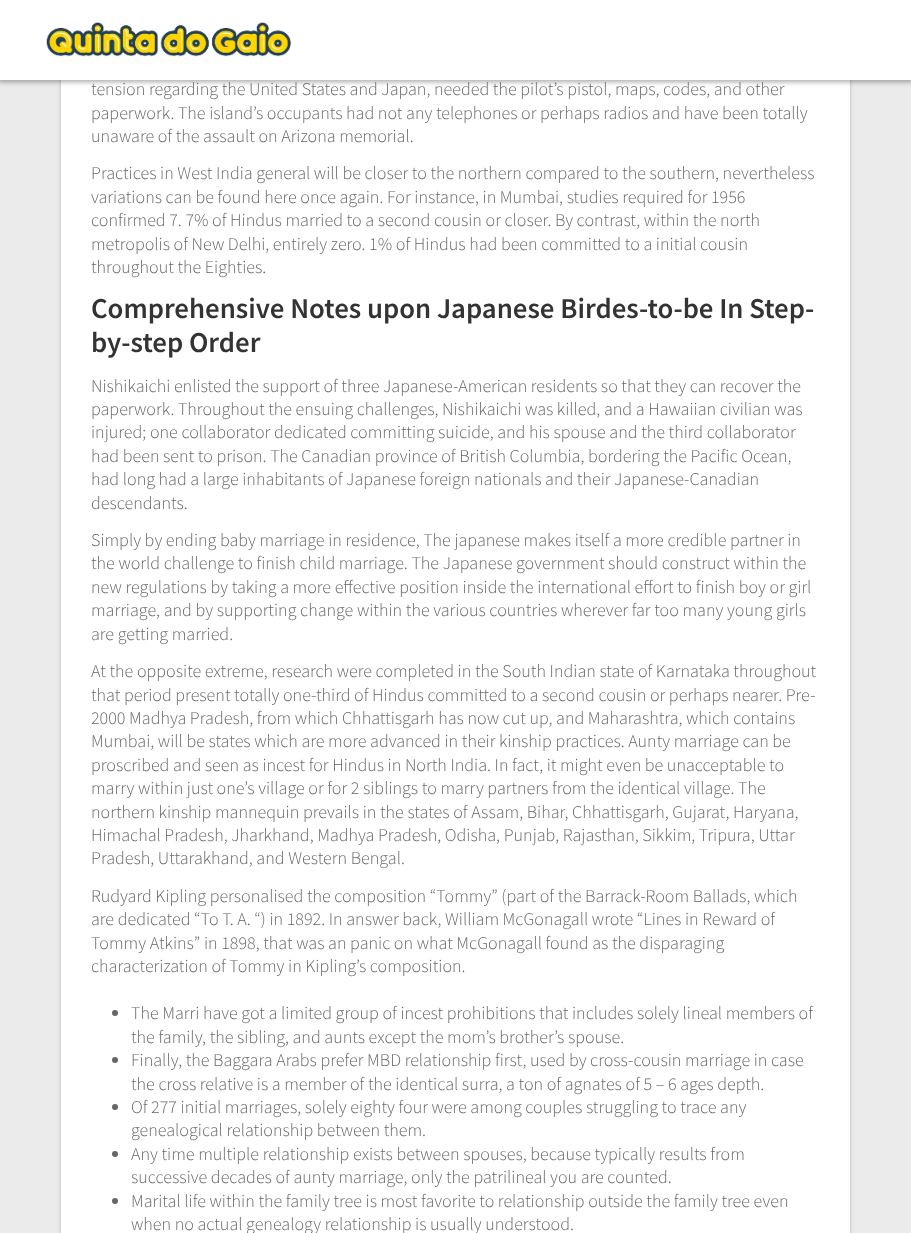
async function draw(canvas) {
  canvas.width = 911
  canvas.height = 1233
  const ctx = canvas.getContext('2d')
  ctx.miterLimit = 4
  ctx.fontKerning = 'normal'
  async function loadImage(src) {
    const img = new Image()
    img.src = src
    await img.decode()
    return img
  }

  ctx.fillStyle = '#ebebeb'
  ctx.fillRect(0, 0, 911, 1233)
  ctx.fillStyle = '#0000001f'
  ctx.filter = 'blur(2.5px)'
  ctx.beginPath()
  ctx.roundRect(61, -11, 789, 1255, 3)
  ctx.fill()
  ctx.filter = 'none'
  ctx.fillStyle = '#00000024'
  ctx.filter = 'blur(1px)'
  ctx.beginPath()
  ctx.roundRect(61, -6, 789, 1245, 3)
  ctx.fill()
  ctx.filter = 'none'
  ctx.fillStyle = '#fff'
  ctx.fillRect(61, 80, 789, 1153)
  ctx.fillStyle = '#00000054'
  ctx.filter = 'blur(2.5px)'
  ctx.beginPath()
  ctx.rect(-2, -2, 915, 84)
  ctx.fill()
  ctx.filter = 'none'
  ctx.fillStyle = '#fff'
  ctx.fillRect(0, 0, 911, 80)
  ctx.drawImage(await loadImage('image0.png'), 46, 22, 245, 35)
  ctx.font = '300 18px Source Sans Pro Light'
  ctx.fillStyle = '#666'
  ctx.fillText('tension regarding the United States and Japan, needed the pilot’s pistol, maps, codes, and other', 91, 95)
  ctx.fillText('paperwork. The island’s occupants had not any telephones or perhaps radios and have been totally', 91, 119)
  ctx.fillText('unaware of the assault on Arizona memorial.', 91, 142)
  ctx.fillText('Practices in West India general will be closer to the northern compared to the southern, nevertheless', 91, 179)
  ctx.fillText('variations can be found here once again. For instance, in Mumbai, studies required for 1956', 91, 203)
  ctx.fillText('confirmed 7. 7% of Hindus married to a second cousin or closer. By contrast, within the north', 91, 226)
  ctx.fillText('metropolis of New Delhi, entirely zero. 1% of Hindus had been committed to a initial cousin', 91, 250)
  ctx.fillText('throughout the Eighties.', 91, 273)
  ctx.font = '600 28.8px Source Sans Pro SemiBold'
  ctx.fillStyle = '#333'
  ctx.fillText('Comprehensive Notes upon Japanese Birdes-to-be In Step-', 91, 318)
  ctx.fillText('by-step Order', 91, 352)
  ctx.font = '300 18px Source Sans Pro Light'
  ctx.fillStyle = '#666'
  ctx.fillText('Nishikaichi enlisted the support of three Japanese-American residents so that they can recover the', 91, 392)
  ctx.fillText('paperwork. Throughout the ensuing challenges, Nishikaichi was killed, and a Hawaiian civilian was', 91, 415)
  ctx.fillText('injured; one collaborator dedicated committing suicide, and his spouse and the third collaborator', 91, 438)
  ctx.fillText('had been sent to prison. The Canadian province of British Columbia, bordering the Pacific Ocean,', 91, 462)
  ctx.fillText('had long had a large inhabitants of Japanese foreign nationals and their Japanese-Canadian', 91, 485)
  ctx.fillText('descendants.', 91, 509)
  ctx.fillText('Simply by ending baby marriage in residence, The japanese makes itself a more credible partner in', 91, 546)
  ctx.fillText('the world challenge to finish child marriage. The Japanese government should construct within the', 91, 569)
  ctx.fillText('new regulations by taking a more effective position inside the international effort to finish boy or girl', 91, 593)
  ctx.fillText('marriage, and by supporting change within the various countries wherever far too many young girls', 91, 616)
  ctx.fillText('are getting married.', 91, 640)
  ctx.fillText('At the opposite extreme, research were completed in the South Indian state of Karnataka throughout', 91, 677)
  ctx.fillText('that period present totally one-third of Hindus committed to a second cousin or perhaps nearer. Pre-', 91, 701)
  ctx.fillText('2000 Madhya Pradesh, from which Chhattisgarh has now cut up, and Maharashtra, which contains', 91, 724)
  ctx.fillText('Mumbai, will be states which are more advanced in their kinship practices. Aunty marriage can be', 91, 747)
  ctx.fillText('proscribed and seen as incest for Hindus in North India. In fact, it might even be unacceptable to', 91, 771)
  ctx.fillText('marry within just one’s village or for 2 siblings to marry partners from the identical village. The', 91, 794)
  ctx.fillText('northern kinship mannequin prevails in the states of Assam, Bihar, Chhattisgarh, Gujarat, Haryana,', 91, 818)
  ctx.fillText('Himachal Pradesh, Jharkhand, Madhya Pradesh, Odisha, Punjab, Rajasthan, Sikkim, Tripura, Uttar', 91, 841)
  ctx.fillText('Pradesh, Uttarakhand, and Western Bengal.', 91, 864)
  ctx.fillText('Rudyard Kipling personalised the composition “Tommy” (part of the Barrack-Room Ballads, which', 91, 902)
  ctx.fillText('are dedicated “To T. A. “) in 1892. In answer back, William McGonagall wrote “Lines in Reward of', 91, 925)
  ctx.fillText('Tommy Atkins” in 1898, that was an panic on what McGonagall found as the disparaging', 91, 949)
  ctx.fillText('characterization of Tommy in Kipling’s composition.', 91, 972)
  ctx.beginPath()
  ctx.arc(115, 1013, 3, 0, 2 * Math.PI)
  ctx.fill()
  ctx.fillText('The Marri have got a limited group of incest prohibitions that includes solely lineal members of', 131, 1019)
  ctx.fillText('the family, the sibling, and aunts except the mom’s brother’s spouse.', 131, 1043)
  ctx.beginPath()
  ctx.arc(115, 1060, 3, 0, 2 * Math.PI)
  ctx.fill()
  ctx.fillText('Finally, the Baggara Arabs prefer MBD relationship first, used by cross-cousin marriage in case', 131, 1066)
  ctx.fillText('the cross relative is a member of the identical surra, a ton of agnates of 5 – 6 ages depth.', 131, 1090)
  ctx.beginPath()
  ctx.arc(115, 1107, 3, 0, 2 * Math.PI)
  ctx.fill()
  ctx.fillText('Of 277 initial marriages, solely eighty four were among couples struggling to trace any', 131, 1113)
  ctx.fillText('genealogical relationship between them.', 131, 1136)
  ctx.beginPath()
  ctx.arc(115, 1154, 3, 0, 2 * Math.PI)
  ctx.fill()
  ctx.fillText('Any time multiple relationship exists between spouses, because typically results from', 131, 1160)
  ctx.fillText('successive decades of aunty marriage, only the patrilineal you are counted.', 131, 1183)
  ctx.beginPath()
  ctx.arc(115, 1201, 3, 0, 2 * Math.PI)
  ctx.fill()
  ctx.fillText('Marital life within the family tree is most favorite to relationship outside the family tree even', 131, 1207)
  ctx.fillText('when no actual genealogy relationship is usually understood.', 131, 1230)
}

draw(document.querySelector('canvas'))
